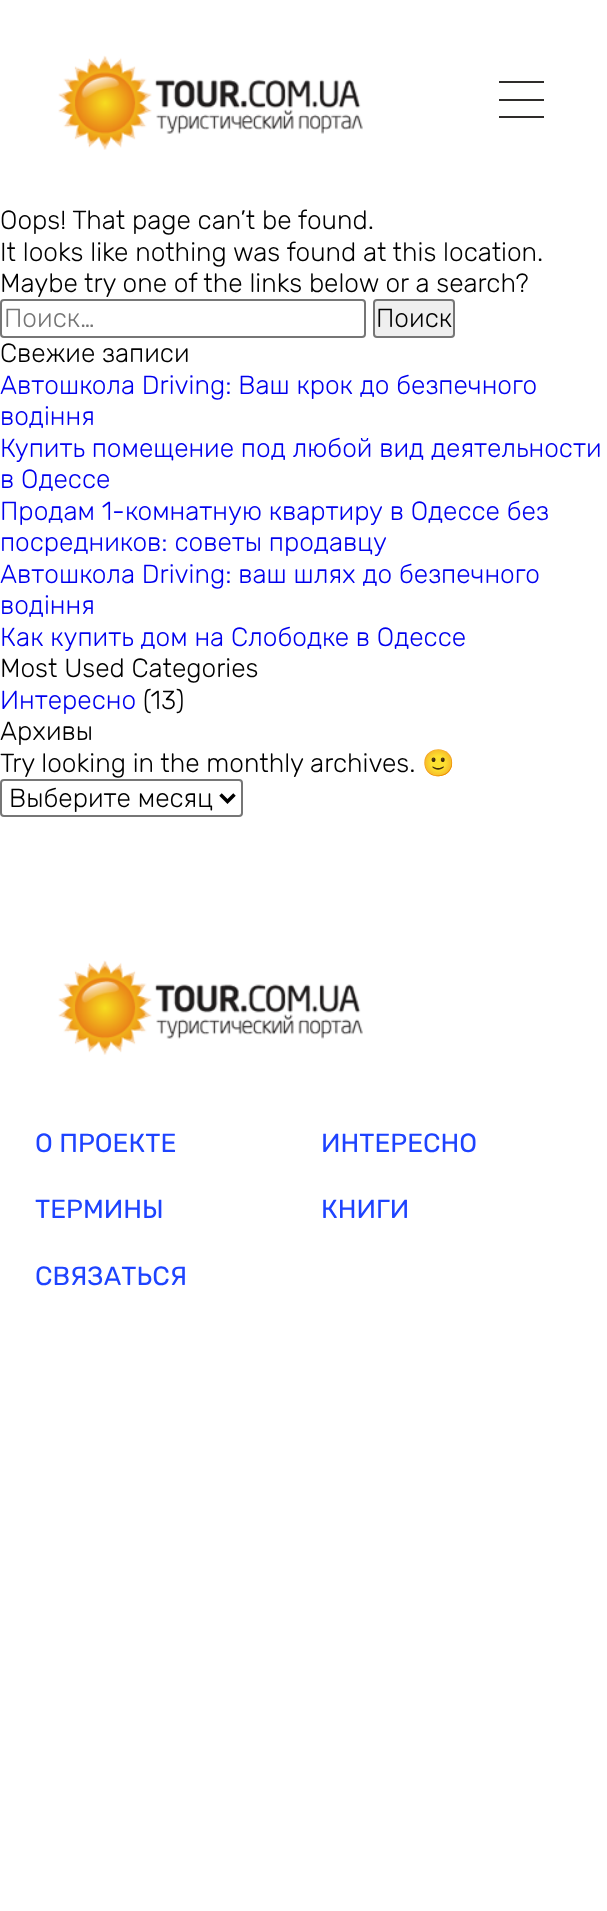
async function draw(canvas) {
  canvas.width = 607
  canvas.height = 1911
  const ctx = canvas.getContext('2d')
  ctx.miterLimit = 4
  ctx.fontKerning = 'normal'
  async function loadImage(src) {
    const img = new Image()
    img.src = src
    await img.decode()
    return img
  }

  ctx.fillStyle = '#fff'
  ctx.fillRect(0, 0, 607, 1911)
  ctx.drawImage(await loadImage('image0.png'), 58, 55, 305, 95)
  ctx.fillStyle = '#2e2c2a'
  ctx.fillRect(499, 81, 45, 2)
  ctx.fillRect(499, 99, 45, 2)
  ctx.fillRect(499, 116, 45, 2)
  ctx.font = '300 26.25px Rubik'
  ctx.fillStyle = '#000'
  ctx.fillText('Oops! That page can’t be found.', 0, 229)
  ctx.fillText('It looks like nothing was found at this location.', 0, 261)
  ctx.fillText('Maybe try one of the links below or a search?', 0, 292)
  ctx.beginPath()
  ctx.roundRect(1, 300, 364, 37, 3)
  ctx.strokeStyle = '#767676'
  ctx.lineWidth = 2
  ctx.stroke()
  ctx.fillStyle = '#757575'
  ctx.fillText('Поиск…', 4, 327)
  ctx.fillStyle = '#efefef'
  ctx.beginPath()
  ctx.roundRect(374, 300, 80, 37, 3)
  ctx.fill()
  ctx.stroke()
  ctx.fillStyle = '#000'
  ctx.fillText('Поиск', 376, 327)
  ctx.fillText('Свежие записи', 0, 362)
  ctx.fillStyle = '#00e'
  ctx.fillText('Автошкола Driving: Ваш крок до безпечного', 0, 394)
  ctx.fillText('водіння', 0, 425)
  ctx.fillText('Купить помещение под любой вид деятельности', 0, 457)
  ctx.fillText('в Одессе', 0, 488)
  ctx.fillText('Продам 1-комнатную квартиру в Одессе без', 0, 520)
  ctx.fillText('посредников: советы продавцу', 0, 551)
  ctx.fillText('Автошкола Driving: ваш шлях до безпечного', 0, 583)
  ctx.fillText('водіння', 0, 614)
  ctx.fillText('Как купить дом на Слободке в Одессе', 0, 646)
  ctx.fillStyle = '#000'
  ctx.fillText('Most Used Categories', 0, 677)
  ctx.fillStyle = '#00e'
  ctx.fillText('Интересно', 0, 709)
  ctx.fillStyle = '#000'
  ctx.fillText('(13)', 143, 709)
  ctx.fillText('Архивы', 0, 740)
  ctx.fillText('Try looking in the monthly archives.', 0, 772)
  ctx.font = '26.25px Noto Color Emoji'
  ctx.fillText('🙂', 422, 772)
  ctx.beginPath()
  ctx.roundRect(1, 780, 241, 36, 3)
  ctx.stroke()
  ctx.beginPath()
  ctx.moveTo(220.5, 794.5)
  ctx.lineTo(227.5, 801.5)
  ctx.lineTo(234.5, 794.5)
  ctx.strokeStyle = '#000'
  ctx.lineWidth = 3.5
  ctx.stroke()
  ctx.font = '300 26.25px Rubik'
  ctx.fillText('Выберите месяц', 9, 807)
  ctx.drawImage(await loadImage('image1.png'), 58, 960, 305, 95)
  ctx.font = '26.25px Rubik'
  ctx.fillStyle = '#1e43ff'
  ctx.fillText('О ПРОЕКТЕ', 35, 1152)
  ctx.fillText('ИНТЕРЕСНО', 321, 1152)
  ctx.fillText('ТЕРМИНЫ', 35, 1218)
  ctx.fillText('КНИГИ', 321, 1218)
  ctx.fillText('СВЯЗАТЬСЯ', 35, 1285)
}

draw(document.querySelector('canvas'))
